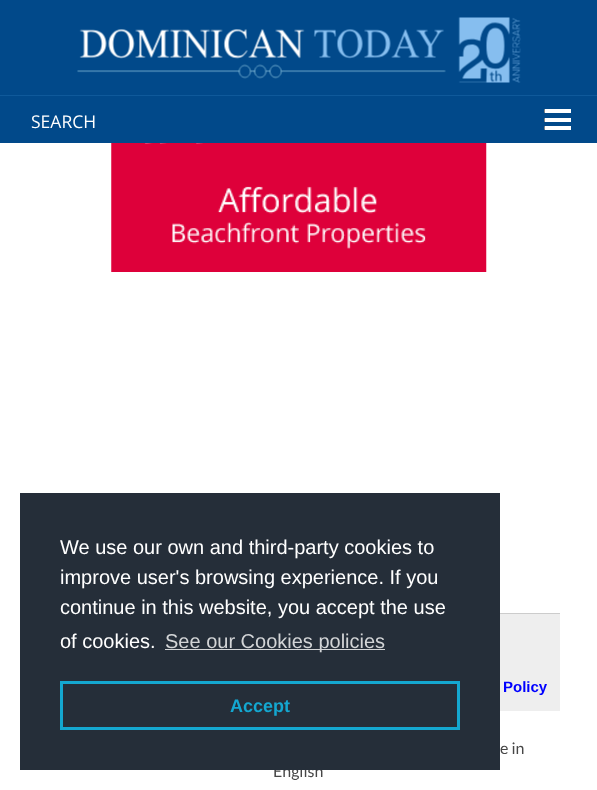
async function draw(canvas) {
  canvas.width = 597
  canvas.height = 790
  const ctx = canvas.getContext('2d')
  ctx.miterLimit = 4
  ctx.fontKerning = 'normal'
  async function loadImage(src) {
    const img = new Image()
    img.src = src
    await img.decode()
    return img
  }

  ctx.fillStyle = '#fff'
  ctx.fillRect(0, 0, 597, 790)
  ctx.fillStyle = '#01498a'
  ctx.fillRect(0, 0, 597, 143)
  ctx.drawImage(await loadImage('image0.png'), 77, 17, 444, 66)
  ctx.fillStyle = '#0f599a'
  ctx.fillRect(0, 95, 597, 1)
  ctx.font = '17.5px Open Sans'
  ctx.fillStyle = '#fff'
  ctx.fillText('SEARCH', 31, 128)
  ctx.fillStyle = '#888'
  ctx.beginPath()
  ctx.roundRect(544, 109, 27, 4, 1)
  ctx.fill()
  ctx.fillStyle = '#fff'
  ctx.fillRect(545, 109, 26, 4)
  ctx.fillStyle = '#888'
  ctx.beginPath()
  ctx.roundRect(544, 118, 27, 4, 1)
  ctx.fill()
  ctx.fillStyle = '#fff'
  ctx.fillRect(545, 118, 26, 4)
  ctx.fillStyle = '#888'
  ctx.beginPath()
  ctx.roundRect(544, 126, 27, 4, 1)
  ctx.fill()
  ctx.fillStyle = '#fff'
  ctx.fillRect(545, 126, 26, 4)
  ctx.drawImage(await loadImage('image1.png'), 111, 143, 376, 129)
  ctx.font = '16px Lato'
  ctx.fillStyle = '#474747'
  ctx.fillText('English', 273, 777)
  ctx.fillStyle = '#252e39'
  ctx.fillRect(20, 493, 480, 277)
  ctx.font = '20px Liberation Sans'
  ctx.fillStyle = '#fff'
  ctx.fillText('We use our own and third-party cookies to', 60, 554)
  ctx.fillText('improve user\'s browsing experience. If you', 60, 584)
  ctx.fillText('continue in this website, you accept the use', 60, 614)
  ctx.fillText('of cookies.', 60, 648)
  ctx.fillStyle = '#d3d5d7'
  ctx.fillRect(165, 649, 220, 1)
  ctx.fillText('See our Cookies policies', 165, 648)
  ctx.strokeStyle = '#14a7d0'
  ctx.lineWidth = 3
  ctx.strokeRect(61.5, 682.5, 397, 46)
  ctx.font = 'bold 18px Liberation Sans'
  ctx.fillStyle = '#14a7d0'
  ctx.fillText('Accept', 230, 712)
  ctx.fillStyle = '#eee'
  ctx.fillRect(500, 614, 60, 97)
  ctx.fillStyle = '#ccc'
  ctx.fillRect(500, 613, 60, 1)
  ctx.font = 'bold 15px Liberation Sans'
  ctx.fillStyle = '#00f'
  ctx.fillText('Policy', 503, 692)
  ctx.font = '16px Lato'
  ctx.fillStyle = '#474747'
  ctx.fillText('e in', 500, 754)
}

draw(document.querySelector('canvas'))
